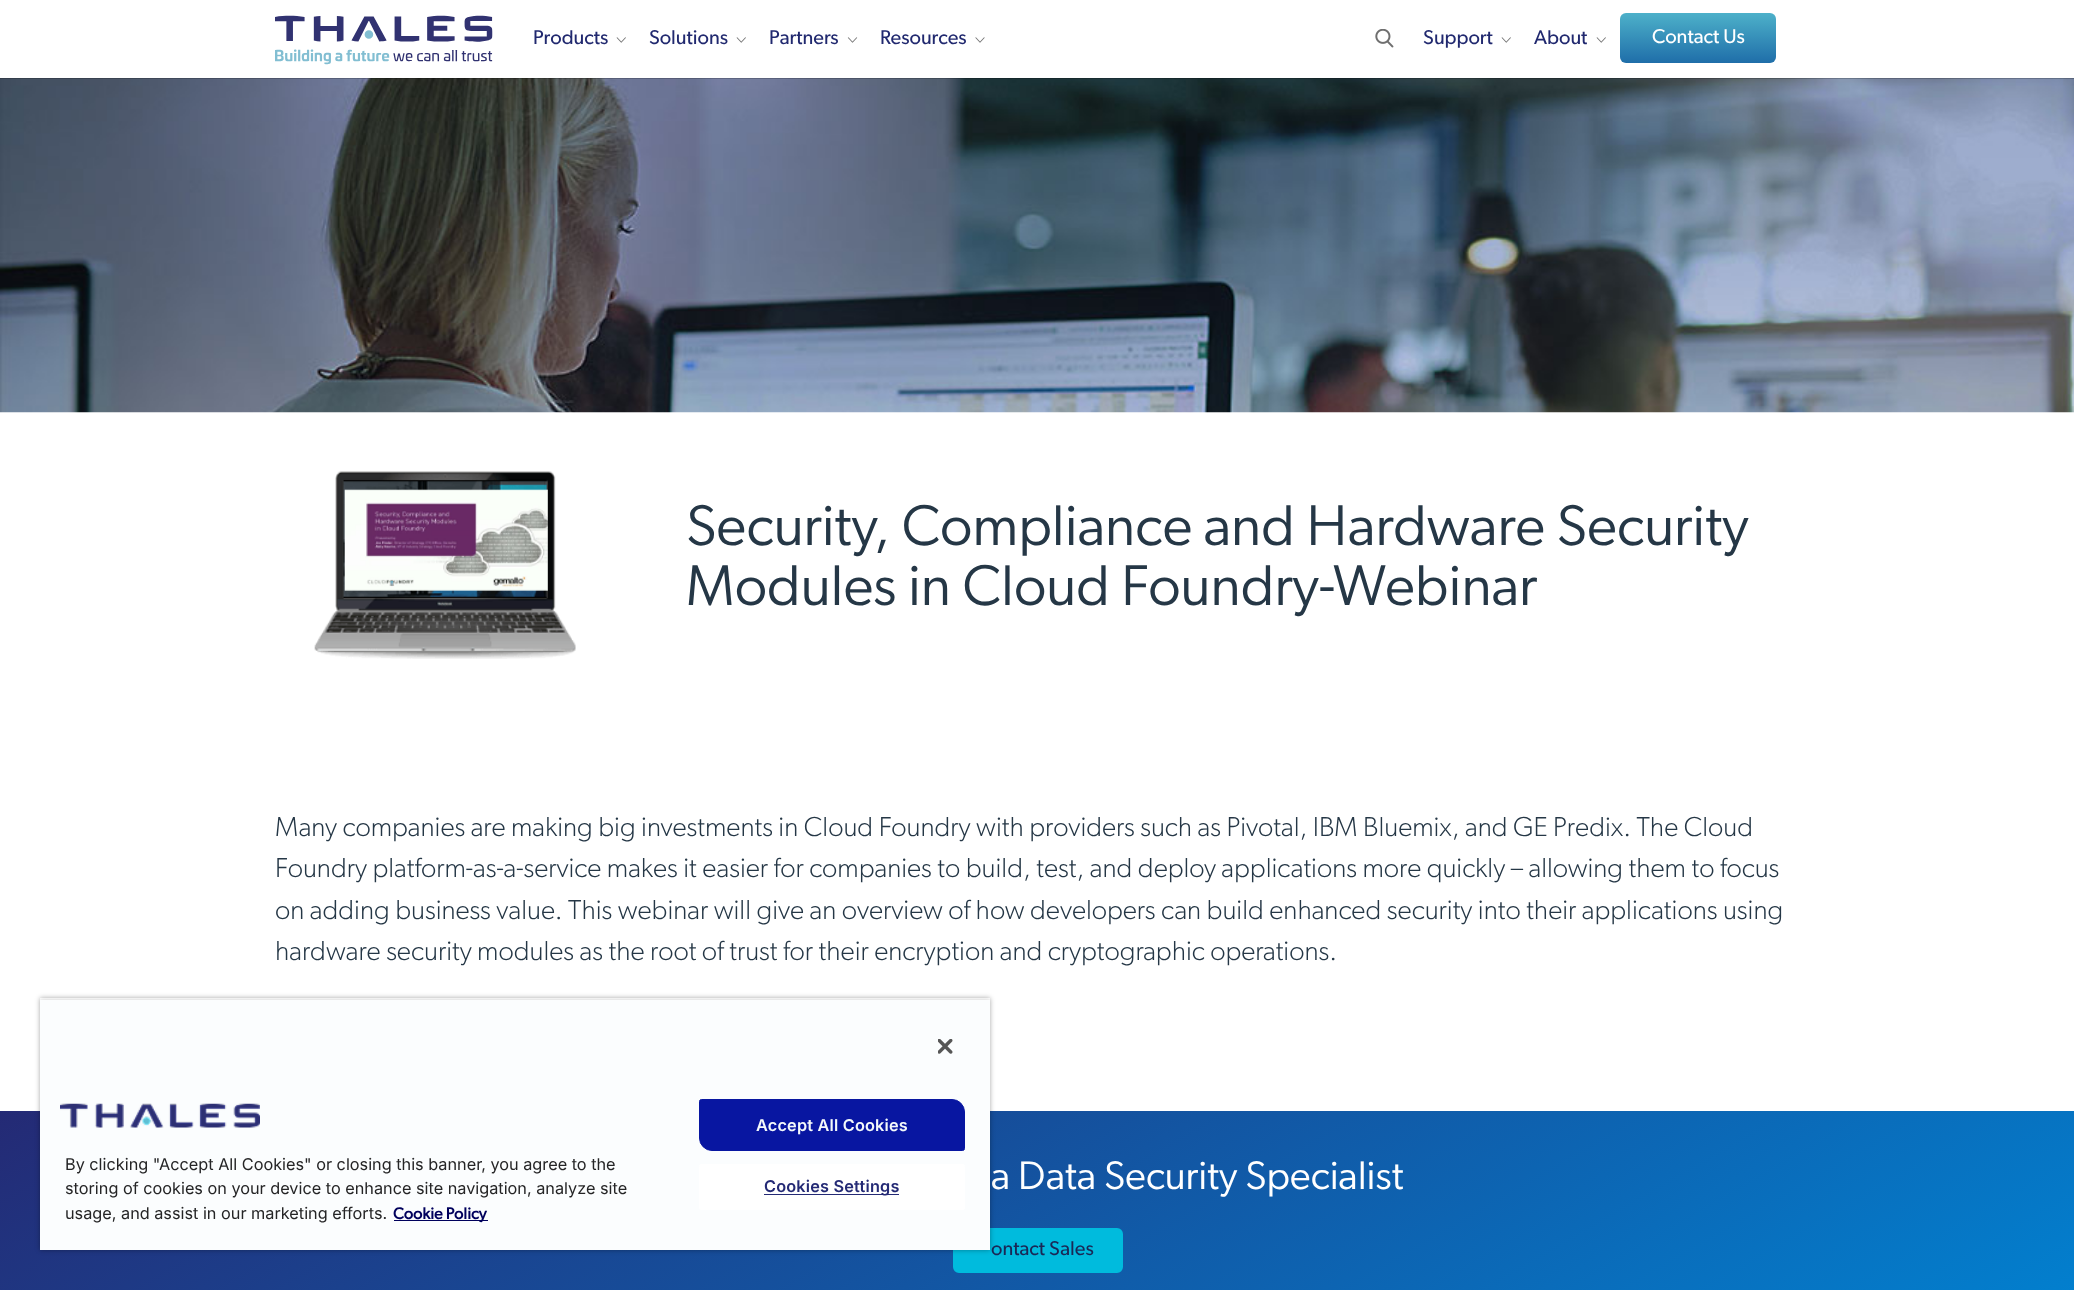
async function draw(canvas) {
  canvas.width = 2074
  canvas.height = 1290
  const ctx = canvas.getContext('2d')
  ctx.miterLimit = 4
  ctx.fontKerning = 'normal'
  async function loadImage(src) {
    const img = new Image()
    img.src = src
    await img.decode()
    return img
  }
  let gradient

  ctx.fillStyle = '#fff'
  ctx.fillRect(0, 0, 2074, 1290)
  ctx.drawImage(await loadImage('image5.png'), 0, 78, 2074, 335)
  ctx.fillStyle = '#00000033'
  ctx.filter = 'blur(0.5px)'
  ctx.beginPath()
  ctx.rect(0, 1, 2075, 78)
  ctx.fill()
  ctx.filter = 'none'
  ctx.fillStyle = '#fff'
  ctx.fillRect(0, 0, 2074, 78)
  ctx.drawImage(await loadImage('image0.png'), 275, 15, 218, 50)
  ctx.font = '20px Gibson'
  ctx.fillStyle = '#21296f'
  ctx.fillText('Products', 533, 44)
  ctx.drawImage(await loadImage('image1.png'), 616, 37, 10, 6)
  ctx.fillText('Solutions', 649, 44)
  ctx.drawImage(await loadImage('image1.png'), 736, 37, 10, 6)
  ctx.fillText('Partners', 769, 44)
  ctx.drawImage(await loadImage('image2.png'), 847, 37, 11, 6)
  ctx.fillText('Resources', 880, 44)
  ctx.drawImage(await loadImage('image3.png'), 975, 37, 10, 6)
  ctx.drawImage(await loadImage('image4.png'), 1375, 29, 19, 19)
  ctx.fillText('Support', 1423, 44)
  ctx.drawImage(await loadImage('image1.png'), 1501, 37, 10, 6)
  ctx.fillText('About', 1534, 44)
  ctx.drawImage(await loadImage('image1.png'), 1596, 37, 10, 6)
  gradient = ctx.createLinearGradient(1698, 12, 1698, 63)
  gradient.addColorStop(0, '#4eb2ca')
  gradient.addColorStop(1, '#1f6ea9')
  ctx.fillStyle = gradient
  ctx.beginPath()
  ctx.roundRect(1620, 13, 156, 50, 6)
  ctx.fill()
  ctx.fillStyle = '#fff'
  ctx.fillText('Contact Us', 1652, 43)
  ctx.drawImage(await loadImage('image6.png'), 314, 471, 262, 188)
  ctx.font = '57.5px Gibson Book'
  ctx.fillStyle = '#253746'
  ctx.fillText('Security, Compliance and Hardware Security', 686, 545)
  ctx.fillText('Modules in Cloud Foundry-Webinar', 686, 605)
  ctx.font = '300 27.5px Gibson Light'
  ctx.fillText('Many companies are making big investments in Cloud Foundry with providers such as Pivotal, IBM Bluemix, and GE Predix. The Cloud', 275, 836)
  ctx.fillText('Foundry platform-as-a-service makes it easier for companies to build, test, and deploy applications more quickly – allowing them to focus', 275, 877)
  ctx.fillText('on adding business value. This webinar will give an overview of how developers can build enhanced security into their applications using', 275, 919)
  ctx.fillText('hardware security modules as the root of trust for their encryption and cryptographic operations.', 275, 960)
  gradient = ctx.createLinearGradient(735, 687, 1340, 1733)
  gradient.addColorStop(0, '#242a75')
  gradient.addColorStop(1, '#0280cf')
  ctx.fillStyle = gradient
  ctx.fillRect(0, 1111, 2074, 179)
  ctx.font = '40px Gibson Book'
  ctx.fillStyle = '#fff'
  ctx.fillText('a Data Security Specialist', 991, 1189)
  ctx.fillStyle = '#0bd'
  ctx.beginPath()
  ctx.roundRect(954.5, 1229.5, 167, 42, 4.5)
  ctx.fill()
  ctx.strokeStyle = '#0bd'
  ctx.lineWidth = 3
  ctx.stroke()
  ctx.font = '20px Gibson'
  ctx.fillStyle = '#1a2856'
  ctx.fillText('ontact Sales', 991, 1255)
  ctx.save()
  ctx.beginPath()
  ctx.moveTo(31, 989)
  ctx.lineTo(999, 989)
  ctx.lineTo(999, 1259)
  ctx.lineTo(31, 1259)
  ctx.closePath()
  ctx.moveTo(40, 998)
  ctx.lineTo(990, 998)
  ctx.lineTo(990, 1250)
  ctx.lineTo(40, 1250)
  ctx.closePath()
  ctx.clip('evenodd')
  ctx.fillStyle = '#00000059'
  ctx.filter = 'blur(2.5px)'
  ctx.beginPath()
  ctx.rect(40, 998, 950, 252)
  ctx.fill()
  ctx.filter = 'none'
  ctx.restore()
  ctx.save()
  ctx.beginPath()
  ctx.rect(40, 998, 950, 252)
  ctx.clip()
  ctx.fillStyle = '#00000033'
  ctx.filter = 'blur(2.5px)'
  ctx.beginPath()
  ctx.rect(40, 1000, 950, 250)
  ctx.fill()
  ctx.filter = 'none'
  ctx.restore()
  ctx.fillStyle = '#fbfdfe'
  ctx.fillRect(40, 1000, 950, 250)
  ctx.drawImage(await loadImage('image7.png'), 938, 1039, 15, 15)
  ctx.drawImage(await loadImage('image8.png'), 60, 1103, 200, 25)
  ctx.font = '16.25px Inter'
  ctx.fillStyle = '#252526'
  ctx.fillText('By clicking "Accept All Cookies" or closing this banner, you agree to the', 65, 1170)
  ctx.fillText('storing of cookies on your device to enhance site navigation, analyze site', 65, 1194)
  ctx.fillText('usage, and assist in our marketing efforts.', 65, 1219)
  ctx.fillStyle = '#00005c'
  ctx.fillRect(394, 1220, 94, 1)
  ctx.font = 'bold 16.25px Gibson'
  ctx.fillText('Cookie Policy', 393, 1219)
  ctx.fillStyle = '#0816a1'
  ctx.beginPath()
  ctx.roundRect(699.5, 1099.5, 265, 51, [2, 12.5, 2, 12.5])
  ctx.fill()
  ctx.strokeStyle = '#0816a1'
  ctx.lineWidth = 1
  ctx.stroke()
  ctx.letterSpacing = '0.2px'
  ctx.font = '600 16.25px Inter'
  ctx.fillStyle = '#f4f9fb'
  ctx.fillText('Accept All Cookies', 756, 1131)
  ctx.fillStyle = '#fff'
  ctx.beginPath()
  ctx.roundRect(699, 1164, 266, 46, 2.5)
  ctx.fill()
  ctx.fillStyle = '#242a75'
  ctx.fillRect(764, 1194, 135, 1)
  ctx.fillText('Cookies Settings', 764, 1192)
}

draw(document.querySelector('canvas'))
